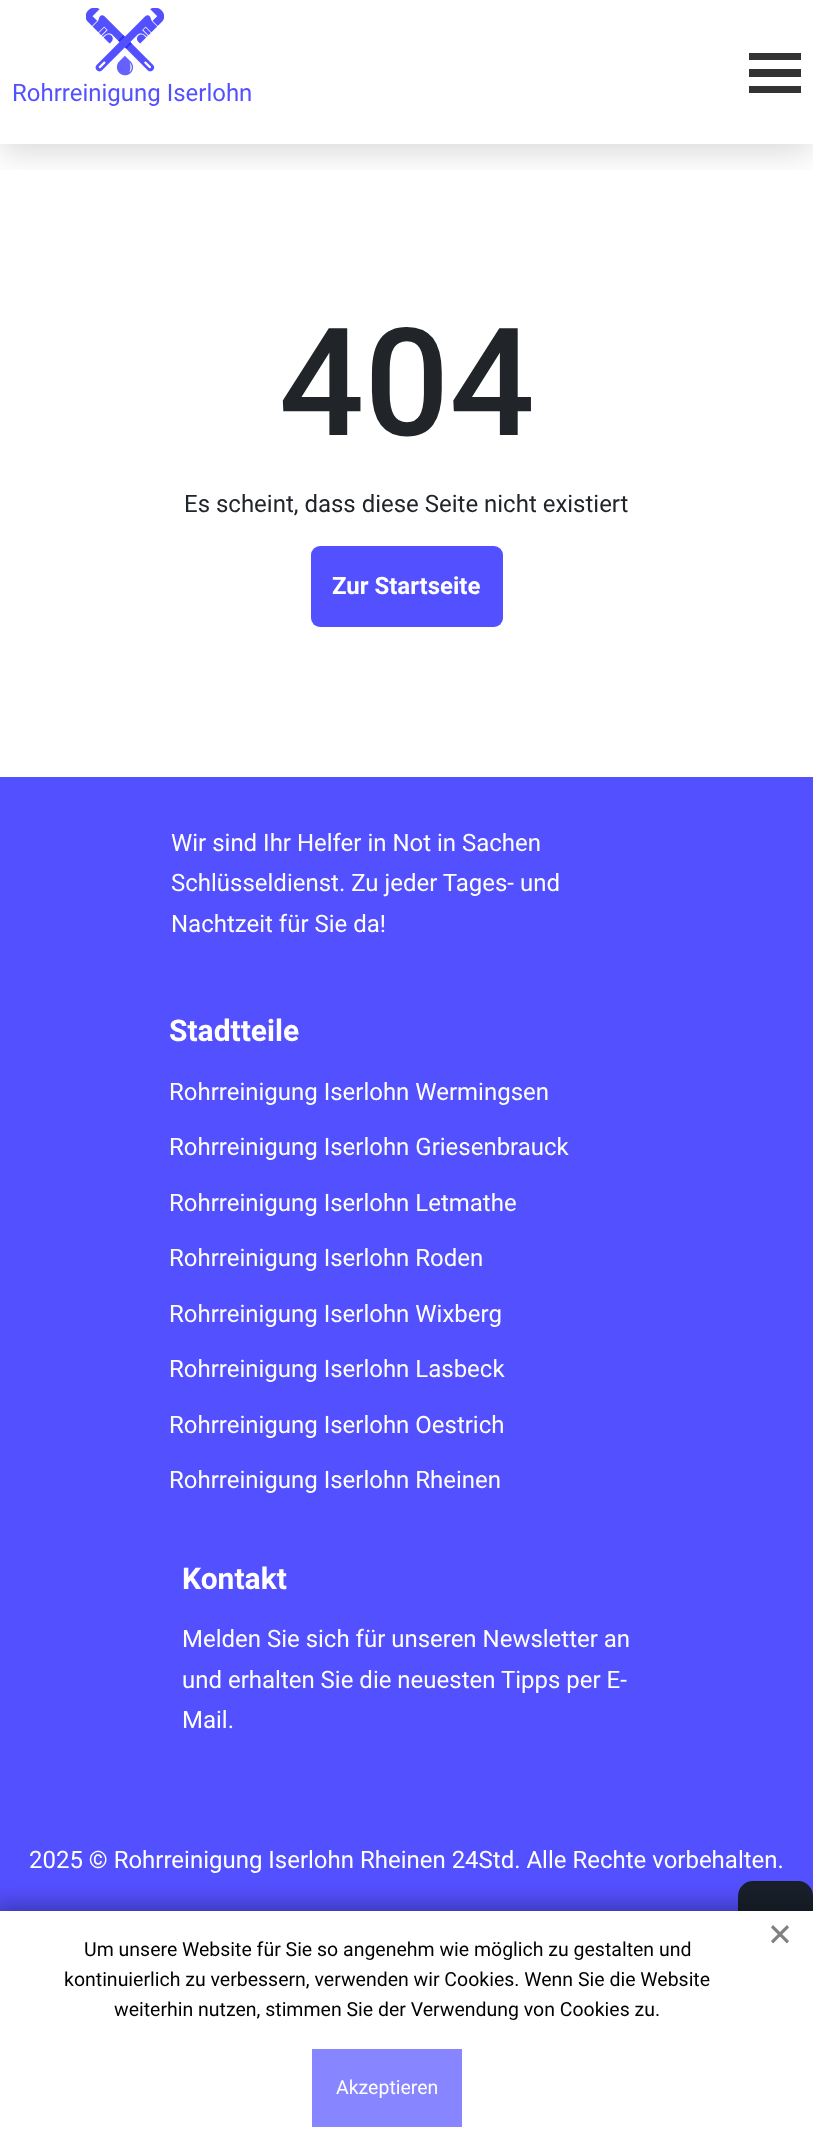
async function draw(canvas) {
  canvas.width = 813
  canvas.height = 2151
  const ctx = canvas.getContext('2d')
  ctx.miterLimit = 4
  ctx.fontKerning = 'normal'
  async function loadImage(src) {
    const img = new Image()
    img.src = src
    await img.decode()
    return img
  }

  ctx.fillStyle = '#fff'
  ctx.fillRect(0, 0, 813, 2151)
  ctx.save()
  ctx.beginPath()
  ctx.rect(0, 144, 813, 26)
  ctx.clip()
  ctx.fillStyle = '#00000026'
  ctx.filter = 'blur(16.5px)'
  ctx.beginPath()
  ctx.rect(0, 8, 813, 144)
  ctx.fill()
  ctx.filter = 'none'
  ctx.restore()
  ctx.drawImage(await loadImage('image0.png'), 86, 8, 78, 68)
  ctx.font = '24px Roboto'
  ctx.fillStyle = '#5350ff'
  ctx.fillText('Rohrreinigung Iserlohn', 12, 101)
  ctx.fillStyle = '#333'
  ctx.fillRect(749, 53, 52, 7)
  ctx.fillRect(749, 69, 52, 8)
  ctx.fillRect(749, 86, 52, 7)
  ctx.font = '500 150px Roboto'
  ctx.fillStyle = '#212529'
  ctx.fillText('404', 279, 435)
  ctx.font = '24px Roboto'
  ctx.fillText('Es scheint, dass diese Seite nicht existiert', 184, 512)
  ctx.fillStyle = '#5350ff'
  ctx.beginPath()
  ctx.roundRect(311, 546, 192, 81, 9)
  ctx.fill()
  ctx.font = 'bold 24px Roboto'
  ctx.fillStyle = '#fff'
  ctx.fillText('Zur Startseite', 332, 594)
  ctx.fillStyle = '#5350ff'
  ctx.fillRect(0, 777, 813, 1134)
  ctx.font = '24px Roboto'
  ctx.fillStyle = '#fff'
  ctx.fillText('Wir sind Ihr Helfer in Not in Sachen', 171, 851)
  ctx.fillText('Schlüsseldienst. Zu jeder Tages- und', 171, 891)
  ctx.fillText('Nachtzeit für Sie da!', 171, 932)
  ctx.font = 'bold 30px Roboto'
  ctx.fillText('Stadtteile', 169, 1041)
  ctx.font = '24px Roboto'
  ctx.fillText('Rohrreinigung Iserlohn Wermingsen', 169, 1100)
  ctx.fillText('Rohrreinigung Iserlohn Griesenbrauck', 169, 1155)
  ctx.fillText('Rohrreinigung Iserlohn Letmathe', 169, 1211)
  ctx.fillText('Rohrreinigung Iserlohn Roden', 169, 1266)
  ctx.fillText('Rohrreinigung Iserlohn Wixberg', 169, 1322)
  ctx.fillText('Rohrreinigung Iserlohn Lasbeck', 169, 1377)
  ctx.fillText('Rohrreinigung Iserlohn Oestrich', 169, 1433)
  ctx.fillText('Rohrreinigung Iserlohn Rheinen', 169, 1488)
  ctx.font = 'bold 30px Roboto'
  ctx.fillText('Kontakt', 182, 1589)
  ctx.font = '24px Roboto'
  ctx.fillText('Melden Sie sich für unseren Newsletter an', 182, 1647)
  ctx.fillText('und erhalten Sie die neuesten Tipps per E-', 182, 1688)
  ctx.fillText('Mail.', 182, 1728)
  ctx.fillText('2025 © Rohrreinigung Iserlohn Rheinen 24Std. Alle Rechte vorbehalten.', 29, 1868)
  ctx.fillStyle = '#19202b'
  ctx.beginPath()
  ctx.roundRect(738, 1881, 75, 75, 15)
  ctx.fill()
  ctx.fillStyle = '#0000004d'
  ctx.filter = 'blur(11px)'
  ctx.beginPath()
  ctx.rect(-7, 1904, 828, 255)
  ctx.fill()
  ctx.filter = 'none'
  ctx.fillStyle = '#fff'
  ctx.fillRect(0, 1911, 813, 240)
  ctx.fillStyle = '#808080'
  ctx.beginPath()
  ctx.moveTo(771, 1927.5)
  ctx.lineTo(773, 1925)
  ctx.lineTo(789, 1941)
  ctx.lineTo(787, 1943.5)
  ctx.closePath()
  ctx.fill()
  ctx.beginPath()
  ctx.moveTo(787, 1925)
  ctx.lineTo(789, 1927.5)
  ctx.lineTo(773, 1943.5)
  ctx.lineTo(771, 1941)
  ctx.closePath()
  ctx.fill()
  ctx.font = '19.5px Roboto'
  ctx.fillStyle = '#000'
  ctx.fillText('Um unsere Website für Sie so angenehm wie möglich zu gestalten und', 84, 1956)
  ctx.fillText('kontinuierlich zu verbessern, verwenden wir Cookies. Wenn Sie die Website', 64, 1986)
  ctx.fillText('weiterhin nutzen, stimmen Sie der Verwendung von Cookies zu.', 114, 2016)
  ctx.fillStyle = '#8785ff'
  ctx.fillRect(312, 2049, 150, 78)
  ctx.fillStyle = '#fff'
  ctx.fillText('Akzeptieren', 336, 2094)
}

draw(document.querySelector('canvas'))
